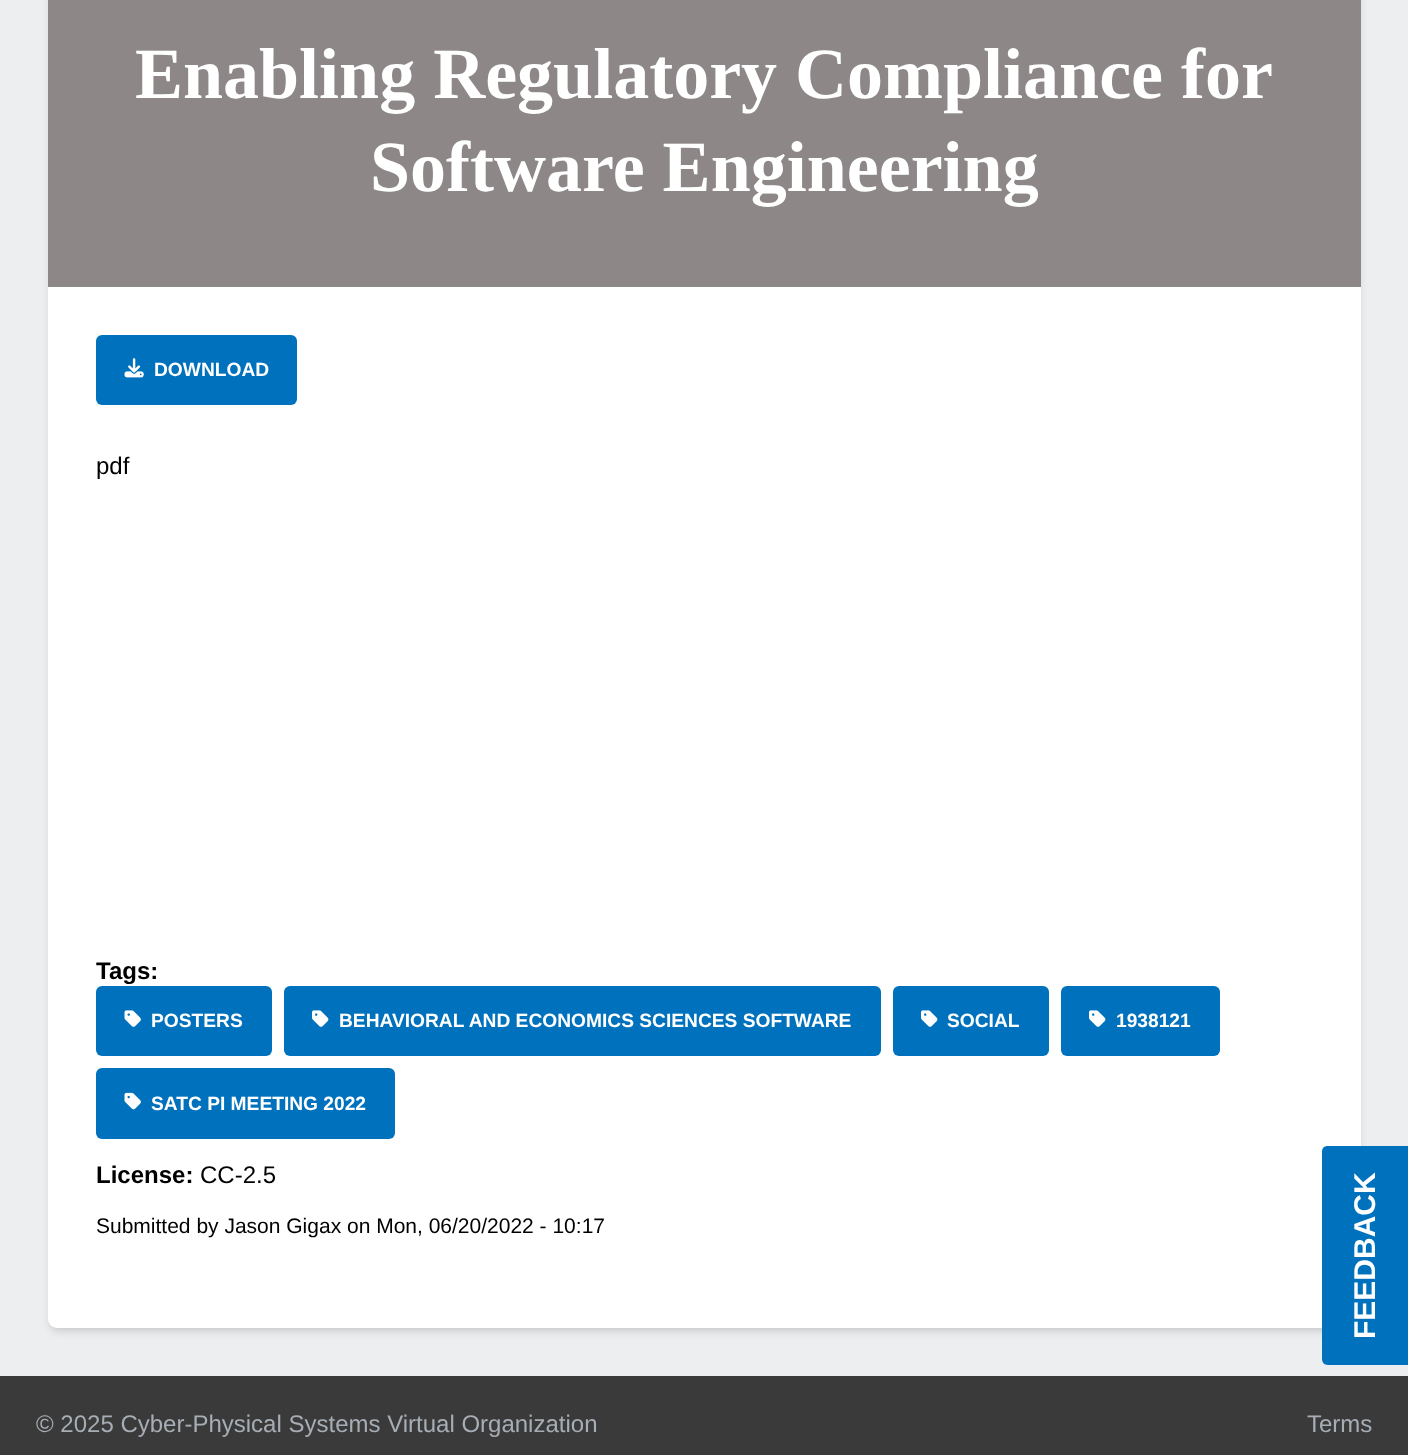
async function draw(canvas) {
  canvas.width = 1408
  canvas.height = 1455
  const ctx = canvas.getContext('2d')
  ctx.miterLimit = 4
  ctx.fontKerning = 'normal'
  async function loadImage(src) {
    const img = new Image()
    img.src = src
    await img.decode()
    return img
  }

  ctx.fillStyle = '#edeeef'
  ctx.fillRect(0, 0, 1408, 1455)
  ctx.fillStyle = '#0000000f'
  ctx.filter = 'blur(3px)'
  ctx.beginPath()
  ctx.roundRect(50, -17, 1309, 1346, 8)
  ctx.fill()
  ctx.filter = 'none'
  ctx.fillStyle = '#0000001a'
  ctx.filter = 'blur(4.5px)'
  ctx.beginPath()
  ctx.roundRect(50, -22, 1309, 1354, 8)
  ctx.fill()
  ctx.filter = 'none'
  ctx.fillStyle = '#fff'
  ctx.beginPath()
  ctx.roundRect(48, -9, 1313, 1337, 9)
  ctx.fill()
  ctx.fillStyle = '#8d8787'
  ctx.fillRect(48, 0, 1313, 287)
  ctx.font = 'bold 72px Liberation Serif'
  ctx.fillStyle = '#fff'
  ctx.fillText('Enabling Regulatory Compliance for', 135, 98)
  ctx.fillText('Software Engineering', 370, 191)
  ctx.fillStyle = '#0071bd'
  ctx.beginPath()
  ctx.roundRect(96, 335, 201, 70, 6)
  ctx.fill()
  ctx.drawImage(await loadImage('image0.png'), 124, 358, 20, 20)
  ctx.font = 'bold 19.2px Liberation Sans'
  ctx.fillStyle = '#fff'
  ctx.fillText('DOWNLOAD', 154, 376)
  ctx.font = '24px Liberation Sans'
  ctx.fillStyle = '#000'
  ctx.fillText('pdf', 96, 474)
  ctx.font = 'bold 24px Liberation Sans'
  ctx.fillText('Tags:', 96, 979)
  ctx.fillStyle = '#0071bd'
  ctx.beginPath()
  ctx.roundRect(96, 986, 176, 70, 6)
  ctx.fill()
  ctx.drawImage(await loadImage('image1.png'), 124, 1010, 17, 17)
  ctx.font = 'bold 19.2px Liberation Sans'
  ctx.fillStyle = '#fff'
  ctx.fillText('POSTERS', 151, 1027)
  ctx.fillStyle = '#0071bd'
  ctx.beginPath()
  ctx.roundRect(284, 986, 597, 70, 6)
  ctx.fill()
  ctx.drawImage(await loadImage('image2.png'), 312, 1010, 17, 17)
  ctx.fillStyle = '#fff'
  ctx.fillText('BEHAVIORAL AND ECONOMICS SCIENCES SOFTWARE', 339, 1027)
  ctx.fillStyle = '#0071bd'
  ctx.beginPath()
  ctx.roundRect(893, 986, 156, 70, 6)
  ctx.fill()
  ctx.drawImage(await loadImage('image2.png'), 921, 1010, 17, 17)
  ctx.fillStyle = '#fff'
  ctx.fillText('SOCIAL', 947, 1027)
  ctx.fillStyle = '#0071bd'
  ctx.beginPath()
  ctx.roundRect(1061, 986, 159, 70, 6)
  ctx.fill()
  ctx.drawImage(await loadImage('image2.png'), 1089, 1010, 17, 17)
  ctx.fillStyle = '#fff'
  ctx.fillText('1938121', 1116, 1027)
  ctx.fillStyle = '#0071bd'
  ctx.beginPath()
  ctx.roundRect(96, 1068, 299, 71, 6)
  ctx.fill()
  ctx.drawImage(await loadImage('image3.png'), 124, 1092, 17, 18)
  ctx.fillStyle = '#fff'
  ctx.fillText('SATC PI MEETING 2022', 151, 1110)
  ctx.font = 'bold 24px Liberation Sans'
  ctx.fillStyle = '#000'
  ctx.fillText('License:', 96, 1183)
  ctx.font = '24px Liberation Sans'
  ctx.fillText('CC-2.5', 200, 1183)
  ctx.font = '21px Liberation Sans'
  ctx.fillText('Submitted by Jason Gigax on Mon, 06/20/2022 - 10:17', 96, 1233)
  ctx.fillStyle = '#0071bd'
  ctx.beginPath()
  ctx.moveTo(1408, 1365)
  ctx.lineTo(1328, 1365)
  ctx.bezierCurveTo(1324, 1365, 1322, 1362, 1322, 1359)
  ctx.lineTo(1322, 1152)
  ctx.bezierCurveTo(1322, 1148, 1324, 1146, 1328, 1146)
  ctx.lineTo(1408, 1146)
  ctx.closePath()
  ctx.fill()
  ctx.font = 'bold 30px Liberation Sans'
  ctx.fillStyle = '#fff'
  ctx.save()
  ctx.translate(1375, 1339)
  ctx.rotate(-90 * Math.PI / 180)
  ctx.fillText('FEEDBACK', 0, 0)
  ctx.restore()
  ctx.fillStyle = '#3b3a3a'
  ctx.fillRect(0, 1376, 1408, 79)
  ctx.font = '24px Liberation Sans'
  ctx.fillStyle = '#a6adb4'
  ctx.fillText('© 2025 Cyber-Physical Systems Virtual Organization', 36, 1432)
  ctx.fillText('Terms', 1307, 1432)
}

draw(document.querySelector('canvas'))
